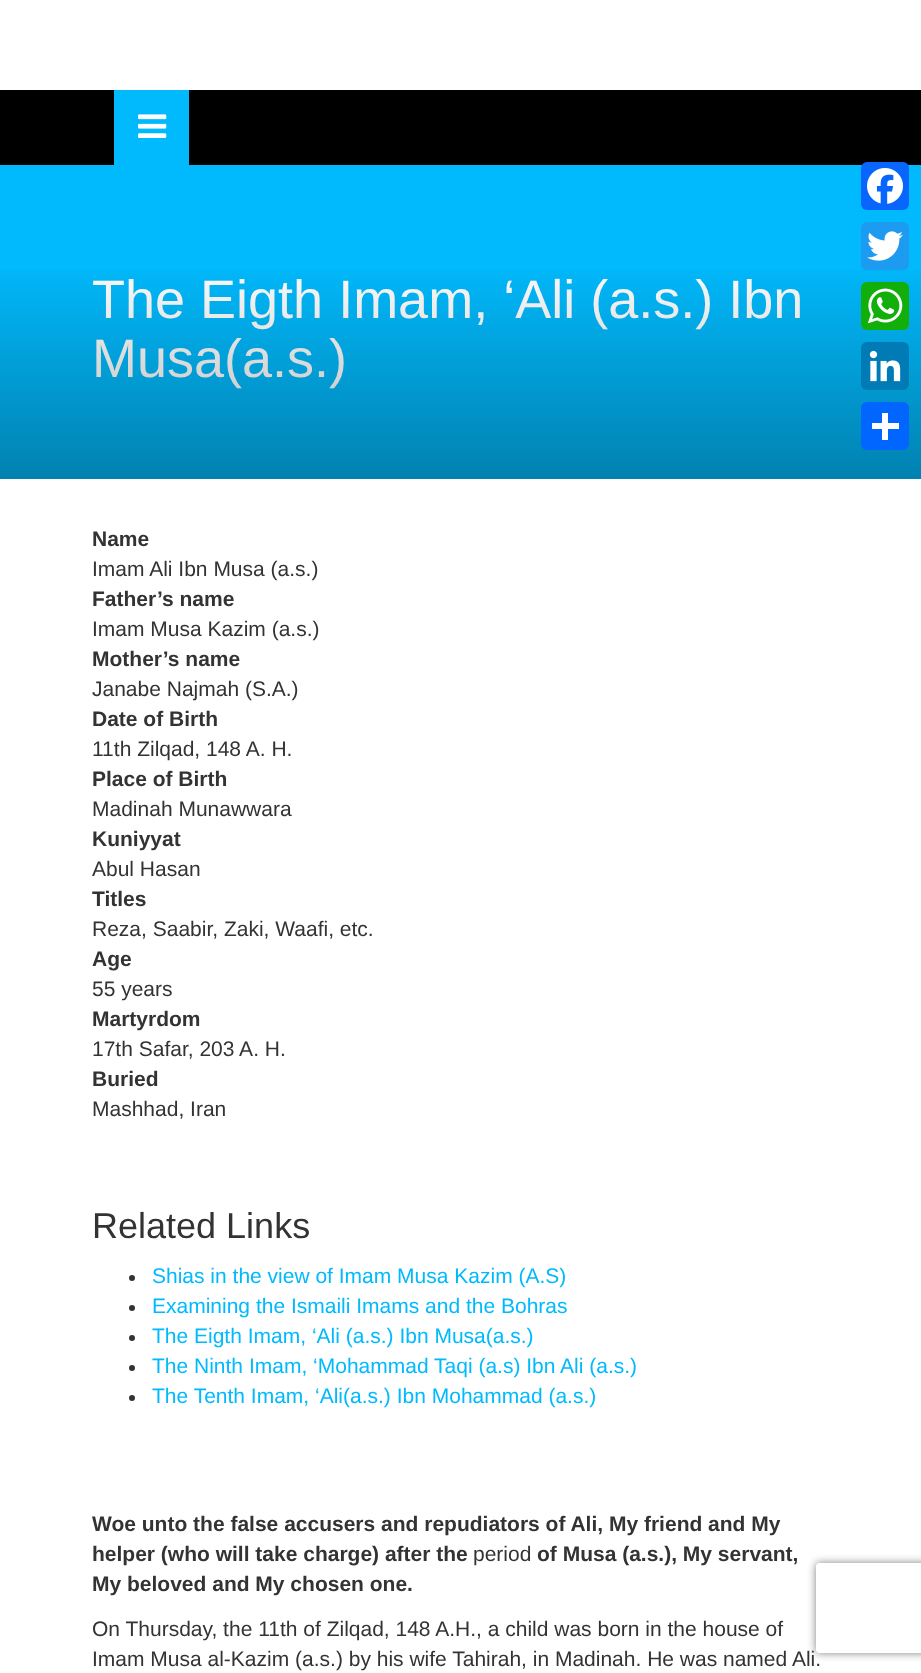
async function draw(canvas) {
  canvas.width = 921
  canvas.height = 1673
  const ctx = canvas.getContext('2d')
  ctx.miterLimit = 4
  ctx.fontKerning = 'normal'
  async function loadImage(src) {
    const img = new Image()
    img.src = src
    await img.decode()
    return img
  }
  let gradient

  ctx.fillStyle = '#fff'
  ctx.fillRect(0, 0, 921, 1673)
  ctx.fillStyle = '#000'
  ctx.fillRect(0, 90, 921, 75)
  ctx.fillStyle = '#01bafd'
  ctx.fillRect(114, 90, 75, 75)
  ctx.drawImage(await loadImage('image0.png'), 138, 114, 29, 24)
  ctx.fillRect(0, 165, 921, 314)
  ctx.font = '54px Liberation Sans'
  ctx.fillStyle = '#fff'
  ctx.fillText('The Eigth Imam, ‘Ali (a.s.) Ibn', 92, 318)
  ctx.fillText('Musa(a.s.)', 92, 377)
  gradient = ctx.createLinearGradient(461, 479, 461, 254)
  gradient.addColorStop(0, '#0000004d')
  gradient.addColorStop(1, '#00000000')
  ctx.fillStyle = gradient
  ctx.fillRect(0, 270, 921, 209)
  ctx.font = 'bold 21px Liberation Sans'
  ctx.fillStyle = '#333'
  ctx.fillText('Name', 92, 546)
  ctx.font = '21px Liberation Sans'
  ctx.fillText('Imam Ali Ibn Musa (a.s.)', 92, 576)
  ctx.font = 'bold 21px Liberation Sans'
  ctx.fillText('Father’s name', 92, 606)
  ctx.font = '21px Liberation Sans'
  ctx.fillText('Imam Musa Kazim (a.s.)', 92, 636)
  ctx.font = 'bold 21px Liberation Sans'
  ctx.fillText('Mother’s name', 92, 666)
  ctx.font = '21px Liberation Sans'
  ctx.fillText('Janabe Najmah (S.A.)', 92, 696)
  ctx.font = 'bold 21px Liberation Sans'
  ctx.fillText('Date of Birth', 92, 726)
  ctx.font = '21px Liberation Sans'
  ctx.fillText('11th Zilqad, 148 A. H.', 92, 756)
  ctx.font = 'bold 21px Liberation Sans'
  ctx.fillText('Place of Birth', 92, 786)
  ctx.font = '21px Liberation Sans'
  ctx.fillText('Madinah Munawwara', 92, 816)
  ctx.font = 'bold 21px Liberation Sans'
  ctx.fillText('Kuniyyat', 92, 846)
  ctx.font = '21px Liberation Sans'
  ctx.fillText('Abul Hasan', 92, 876)
  ctx.font = 'bold 21px Liberation Sans'
  ctx.fillText('Titles', 92, 906)
  ctx.font = '21px Liberation Sans'
  ctx.fillText('Reza, Saabir, Zaki, Waafi, etc.', 92, 936)
  ctx.font = 'bold 21px Liberation Sans'
  ctx.fillText('Age', 92, 966)
  ctx.font = '21px Liberation Sans'
  ctx.fillText('55 years', 92, 996)
  ctx.font = 'bold 21px Liberation Sans'
  ctx.fillText('Martyrdom', 92, 1026)
  ctx.font = '21px Liberation Sans'
  ctx.fillText('17th Safar, 203 A. H.', 92, 1056)
  ctx.font = 'bold 21px Liberation Sans'
  ctx.fillText('Buried', 92, 1086)
  ctx.font = '21px Liberation Sans'
  ctx.fillText('Mashhad, Iran', 92, 1116)
  ctx.font = '36px Liberation Sans'
  ctx.fillText('Related Links', 92, 1238)
  ctx.beginPath()
  ctx.arc(132, 1278, 3, 0, 2 * Math.PI)
  ctx.fill()
  ctx.font = '21px Liberation Sans'
  ctx.fillStyle = '#01bafd'
  ctx.fillText('Shias in the view of Imam Musa Kazim (A.S)', 152, 1283)
  ctx.fillStyle = '#333'
  ctx.beginPath()
  ctx.arc(132, 1308, 3, 0, 2 * Math.PI)
  ctx.fill()
  ctx.fillStyle = '#01bafd'
  ctx.fillText('Examining the Ismaili Imams and the Bohras', 152, 1313)
  ctx.fillStyle = '#333'
  ctx.beginPath()
  ctx.arc(132, 1338, 3, 0, 2 * Math.PI)
  ctx.fill()
  ctx.fillStyle = '#01bafd'
  ctx.fillText('The Eigth Imam, ‘Ali (a.s.) Ibn Musa(a.s.)', 152, 1343)
  ctx.fillStyle = '#333'
  ctx.beginPath()
  ctx.arc(132, 1368, 3, 0, 2 * Math.PI)
  ctx.fill()
  ctx.fillStyle = '#01bafd'
  ctx.fillText('The Ninth Imam, ‘Mohammad Taqi (a.s) Ibn Ali (a.s.)', 152, 1373)
  ctx.fillStyle = '#333'
  ctx.beginPath()
  ctx.arc(132, 1398, 3, 0, 2 * Math.PI)
  ctx.fill()
  ctx.fillStyle = '#01bafd'
  ctx.fillText('The Tenth Imam, ‘Ali(a.s.) Ibn Mohammad (a.s.)', 152, 1403)
  ctx.font = 'bold 21px Liberation Sans'
  ctx.fillStyle = '#333'
  ctx.fillText('Woe unto the false accusers and repudiators of Ali, My friend and My', 92, 1531)
  ctx.fillText('helper (who will take charge) after the', 92, 1561)
  ctx.font = '21px Liberation Sans'
  ctx.fillText('period', 473, 1561)
  ctx.font = 'bold 21px Liberation Sans'
  ctx.fillText('of Musa (a.s.), My servant,', 537, 1561)
  ctx.fillText('My beloved and My chosen one.', 92, 1591)
  ctx.font = '21px Liberation Sans'
  ctx.fillText('On Thursday, the 11th of Zilqad, 148 A.H., a child was born in the house of', 92, 1636)
  ctx.save()
  ctx.beginPath()
  ctx.moveTo(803, 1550)
  ctx.lineTo(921, 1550)
  ctx.lineTo(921, 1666)
  ctx.lineTo(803, 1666)
  ctx.closePath()
  ctx.moveTo(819, 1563)
  ctx.lineTo(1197, 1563)
  ctx.bezierCurveTo(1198.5, 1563, 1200, 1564.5, 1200, 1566)
  ctx.lineTo(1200, 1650)
  ctx.bezierCurveTo(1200, 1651.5, 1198.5, 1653, 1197, 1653)
  ctx.lineTo(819, 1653)
  ctx.bezierCurveTo(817.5, 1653, 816, 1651.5, 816, 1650)
  ctx.lineTo(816, 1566)
  ctx.bezierCurveTo(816, 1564.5, 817.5, 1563, 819, 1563)
  ctx.closePath()
  ctx.clip('evenodd')
  ctx.fillStyle = '#808080'
  ctx.filter = 'blur(4px)'
  ctx.beginPath()
  ctx.roundRect(816, 1563, 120, 90, 3)
  ctx.fill()
  ctx.filter = 'none'
  ctx.restore()
  ctx.fillText('Imam Musa al-Kazim (a.s.) by his wife Tahirah, in Madinah. He was named Ali.', 92, 1666)
  ctx.fillStyle = '#0866ff'
  ctx.beginPath()
  ctx.roundRect(861, 162, 48, 48, 6)
  ctx.fill()
  ctx.drawImage(await loadImage('image1.png'), 867, 168, 36, 36)
  ctx.fillStyle = '#1d9bf0'
  ctx.beginPath()
  ctx.roundRect(861, 222, 48, 48, 6)
  ctx.fill()
  ctx.drawImage(await loadImage('image2.png'), 867, 231, 36, 30)
  ctx.fillStyle = '#12af0a'
  ctx.beginPath()
  ctx.roundRect(861, 282, 48, 48, 6)
  ctx.fill()
  ctx.drawImage(await loadImage('image3.png'), 867, 288, 36, 36)
  ctx.fillStyle = '#007bb5'
  ctx.beginPath()
  ctx.roundRect(861, 342, 48, 48, 6)
  ctx.fill()
  ctx.drawImage(await loadImage('image4.png'), 869, 350, 32, 32)
  ctx.fillStyle = '#0166ff'
  ctx.beginPath()
  ctx.roundRect(861, 402, 48, 48, 6)
  ctx.fill()
  ctx.fillStyle = '#fff'
  ctx.fillRect(882, 413, 6, 27)
  ctx.fillRect(872, 423, 27, 6)
}

draw(document.querySelector('canvas'))
